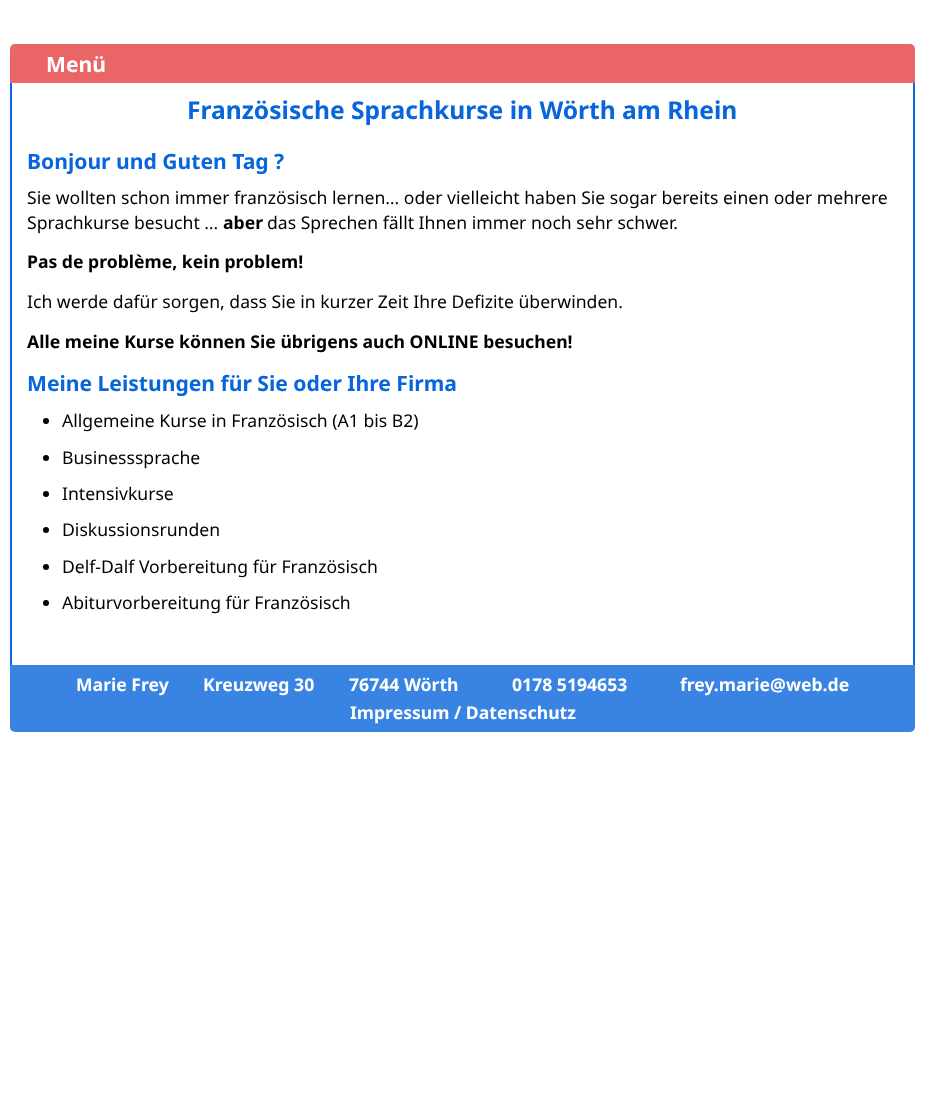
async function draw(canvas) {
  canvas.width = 925
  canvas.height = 1107
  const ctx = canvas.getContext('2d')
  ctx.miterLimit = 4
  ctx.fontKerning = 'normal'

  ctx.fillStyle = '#fff'
  ctx.fillRect(0, 0, 925, 1107)
  ctx.fillStyle = '#ea6666'
  ctx.beginPath()
  ctx.roundRect(10, 44, 905, 39, [5, 5, 0, 0])
  ctx.fill()
  ctx.font = 'bold 21.1px Noto Sans'
  ctx.fillStyle = '#fff'
  ctx.fillText('Menü', 46, 72)
  ctx.fillStyle = '#0865dc'
  ctx.fillRect(913, 83, 2, 582)
  ctx.fillRect(10, 83, 2, 582)
  ctx.font = 'bold 24.6px Noto Sans'
  ctx.fillText('Französische Sprachkurse in Wörth am Rhein', 187, 119)
  ctx.font = 'bold 21.1px Noto Sans'
  ctx.fillText('Bonjour und Guten Tag ?', 27, 169)
  ctx.font = '17.6px Noto Sans'
  ctx.fillStyle = '#000'
  ctx.fillText('Sie wollten schon immer französisch lernen… oder vielleicht haben Sie sogar bereits einen oder mehrere', 27, 204)
  ctx.fillText('Sprachkurse besucht …', 27, 229)
  ctx.font = 'bold 17.6px Noto Sans'
  ctx.fillText('aber', 223, 229)
  ctx.font = '17.6px Noto Sans'
  ctx.fillText('das Sprechen fällt Ihnen immer noch sehr schwer.', 267, 229)
  ctx.font = 'bold 17.6px Noto Sans'
  ctx.fillText('Pas de problème, kein problem!', 27, 268)
  ctx.font = '17.6px Noto Sans'
  ctx.fillText('Ich werde dafür sorgen, dass Sie in kurzer Zeit Ihre Defizite überwinden.', 27, 308)
  ctx.font = 'bold 17.6px Noto Sans'
  ctx.fillText('Alle meine Kurse können Sie übrigens auch ONLINE besuchen!', 27, 348)
  ctx.font = 'bold 21.1px Noto Sans'
  ctx.fillStyle = '#0865dc'
  ctx.fillText('Meine Leistungen für Sie oder Ihre Firma', 27, 391)
  ctx.fillStyle = '#000'
  ctx.beginPath()
  ctx.arc(46, 421, 3, 0, 2 * Math.PI)
  ctx.fill()
  ctx.font = '17.6px Noto Sans'
  ctx.fillText('Allgemeine Kurse in Französisch (A1 bis B2)', 62, 427)
  ctx.beginPath()
  ctx.arc(46, 458, 3, 0, 2 * Math.PI)
  ctx.fill()
  ctx.fillText('Businesssprache', 62, 464)
  ctx.beginPath()
  ctx.arc(46, 494, 3, 0, 2 * Math.PI)
  ctx.fill()
  ctx.fillText('Intensivkurse', 62, 500)
  ctx.beginPath()
  ctx.arc(46, 530, 3, 0, 2 * Math.PI)
  ctx.fill()
  ctx.fillText('Diskussionsrunden', 62, 536)
  ctx.beginPath()
  ctx.arc(46, 567, 3, 0, 2 * Math.PI)
  ctx.fill()
  ctx.fillText('Delf-Dalf Vorbereitung für Französisch', 62, 573)
  ctx.beginPath()
  ctx.arc(46, 603, 3, 0, 2 * Math.PI)
  ctx.fill()
  ctx.fillText('Abiturvorbereitung für Französisch', 62, 609)
  ctx.fillStyle = '#3984e3'
  ctx.beginPath()
  ctx.roundRect(10, 665, 905, 67, [0, 0, 5, 5])
  ctx.fill()
  ctx.font = 'bold 17.6px Noto Sans'
  ctx.fillStyle = '#fff'
  ctx.fillText('Marie Frey', 76, 691)
  ctx.fillText('Kreuzweg 30', 203, 691)
  ctx.fillText('76744 Wörth', 349, 691)
  ctx.fillText('0178 5194653', 512, 691)
  ctx.fillText('frey.marie@web.de', 680, 691)
  ctx.fillText('Impressum / Datenschutz', 350, 719)
}

draw(document.querySelector('canvas'))
